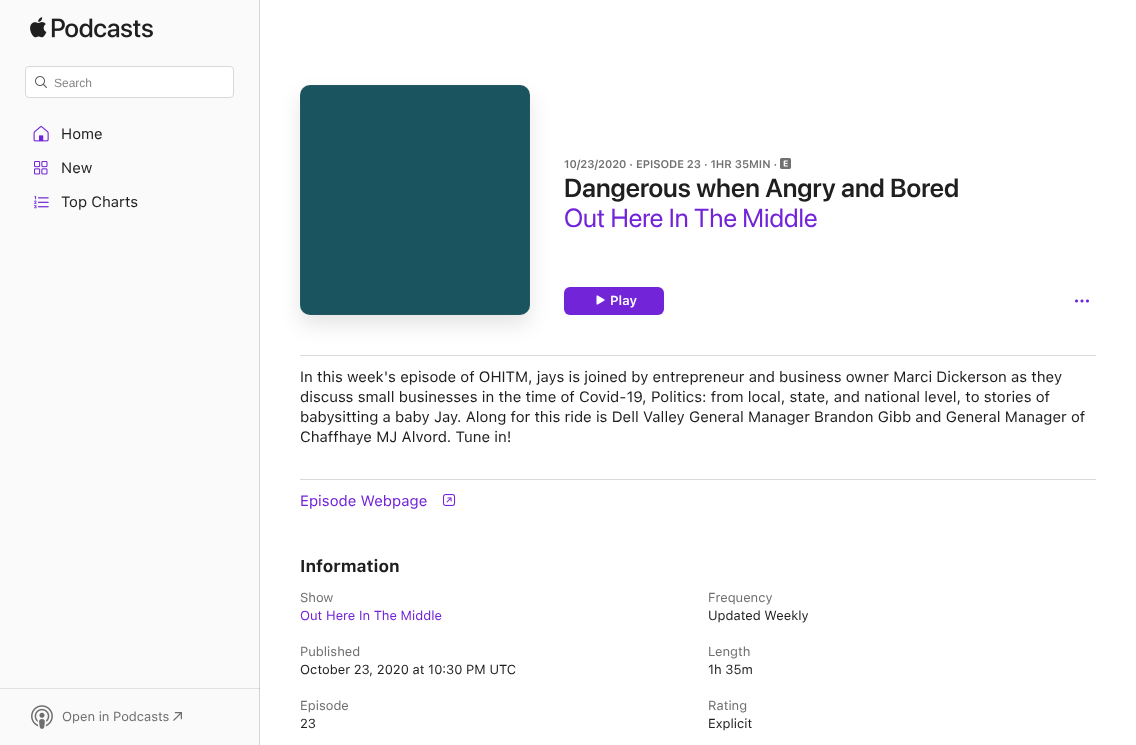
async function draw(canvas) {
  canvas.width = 1136
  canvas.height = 745
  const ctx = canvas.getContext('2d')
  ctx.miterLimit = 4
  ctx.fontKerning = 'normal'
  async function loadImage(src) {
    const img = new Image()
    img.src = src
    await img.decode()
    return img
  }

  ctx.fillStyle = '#fff'
  ctx.fillRect(0, 0, 1136, 745)
  ctx.fillStyle = '#fafafa'
  ctx.fillRect(0, 0, 259, 745)
  ctx.fillStyle = '#e1e1e1'
  ctx.fillRect(0, 688, 260, 1)
  ctx.fillStyle = '#d5d5d5'
  ctx.fillRect(259, 0, 1, 745)
  ctx.fillStyle = '#c0c0c0'
  ctx.fillRect(259, 688, 1, 1)
  ctx.drawImage(await loadImage('image0.png'), 30, 17, 123, 21)
  ctx.fillStyle = '#fff'
  ctx.beginPath()
  ctx.roundRect(25.5, 66.5, 208, 31, 3.5)
  ctx.fill()
  ctx.strokeStyle = '#d9d9d9'
  ctx.stroke()
  ctx.drawImage(await loadImage('image1.png'), 35, 76, 12, 12)
  ctx.font = '12px Liberation Sans'
  ctx.fillStyle = '#858585'
  ctx.fillText('Search', 54, 87)
  ctx.drawImage(await loadImage('image2.png'), 33, 126, 16, 16)
  ctx.font = '15px "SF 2"'
  ctx.fillStyle = '#1f1f1f'
  ctx.fillText('Home', 61, 139)
  ctx.drawImage(await loadImage('image3.png'), 34, 161, 14, 14)
  ctx.fillText('New', 61, 173)
  ctx.drawImage(await loadImage('image4.png'), 34, 196, 15, 13)
  ctx.fillText('Top Charts', 61, 207)
  ctx.drawImage(await loadImage('image5.png'), 31, 705, 22, 24)
  ctx.font = '13px "SF 2"'
  ctx.fillStyle = '#707070'
  ctx.fillText('Open in Podcasts', 62, 721)
  ctx.drawImage(await loadImage('image6.png'), 173, 712, 9, 9)
  ctx.fillStyle = '#d9d9d9'
  ctx.fillRect(300, 355, 796, 1)
  ctx.fillStyle = '#0000001a'
  ctx.filter = 'blur(10px)'
  ctx.beginPath()
  ctx.roundRect(300, 95, 230, 230, 10)
  ctx.fill()
  ctx.filter = 'none'
  ctx.fillStyle = '#19545f'
  ctx.beginPath()
  ctx.roundRect(300, 85, 230, 230, 10)
  ctx.fill()
  ctx.beginPath()
  ctx.roundRect(300.5, 85.5, 229, 229, 9.5)
  ctx.strokeStyle = '#8080801a'
  ctx.stroke()
  ctx.font = '600 11px SF'
  ctx.fillStyle = '#707070'
  ctx.fillText('10/23/2020 · EPISODE 23 · 1HR 35MIN ·', 564, 168)
  ctx.drawImage(await loadImage('image7.png'), 780, 158, 11, 11)
  ctx.font = '600 26px "SF 2"'
  ctx.fillStyle = '#1f1f1f'
  ctx.fillText('Dangerous when Angry and Bored', 564, 197)
  ctx.font = '26px SF'
  ctx.fillStyle = '#7224d8'
  ctx.fillText('Out Here In The Middle', 564, 227)
  ctx.beginPath()
  ctx.roundRect(564, 287, 100, 28, 6)
  ctx.fill()
  ctx.drawImage(await loadImage('image8.png'), 596, 295, 9, 10)
  ctx.font = '600 13px SF'
  ctx.fillStyle = '#fff'
  ctx.fillText('Play', 610, 305)
  ctx.drawImage(await loadImage('image9.png'), 1075, 299, 14, 4)
  ctx.font = '15px "SF 2"'
  ctx.fillStyle = '#1f1f1f'
  ctx.fillText('In this week\'s episode of OHITM, jays is joined by entrepreneur and business owner Marci Dickerson as they', 300, 382)
  ctx.fillText('discuss small businesses in the time of Covid-19, Politics: from local, state, and national level, to stories of', 300, 402)
  ctx.fillText('babysitting a baby Jay. Along for this ride is Dell Valley General Manager Brandon Gibb and General Manager of', 300, 422)
  ctx.fillText('Chaffhaye MJ Alvord. Tune in!', 300, 442)
  ctx.fillStyle = '#d9d9d9'
  ctx.fillRect(300, 479, 796, 1)
  ctx.fillStyle = '#7224d8'
  ctx.fillText('Episode Webpage', 300, 506)
  ctx.drawImage(await loadImage('image10.png'), 443, 494, 13, 12)
  ctx.font = 'bold 17px SF'
  ctx.fillStyle = '#1f1f1f'
  ctx.fillText('Information', 300, 572)
  ctx.font = '13px "SF 2"'
  ctx.fillStyle = '#707070'
  ctx.fillText('Show', 300, 602)
  ctx.fillStyle = '#7224d8'
  ctx.fillText('Out Here In The Middle', 300, 620)
  ctx.fillStyle = '#707070'
  ctx.fillText('Frequency', 708, 602)
  ctx.fillStyle = '#1f1f1f'
  ctx.fillText('Updated Weekly', 708, 620)
  ctx.fillStyle = '#707070'
  ctx.fillText('Published', 300, 656)
  ctx.fillStyle = '#1f1f1f'
  ctx.fillText('October 23, 2020 at 10:30 PM UTC', 300, 674)
  ctx.fillStyle = '#707070'
  ctx.fillText('Length', 708, 656)
  ctx.fillStyle = '#1f1f1f'
  ctx.fillText('1h 35m', 708, 674)
  ctx.fillStyle = '#707070'
  ctx.fillText('Episode', 300, 710)
  ctx.fillStyle = '#1f1f1f'
  ctx.fillText('23', 300, 728)
  ctx.fillStyle = '#707070'
  ctx.fillText('Rating', 708, 710)
  ctx.fillStyle = '#1f1f1f'
  ctx.fillText('Explicit', 708, 728)
}

draw(document.querySelector('canvas'))
